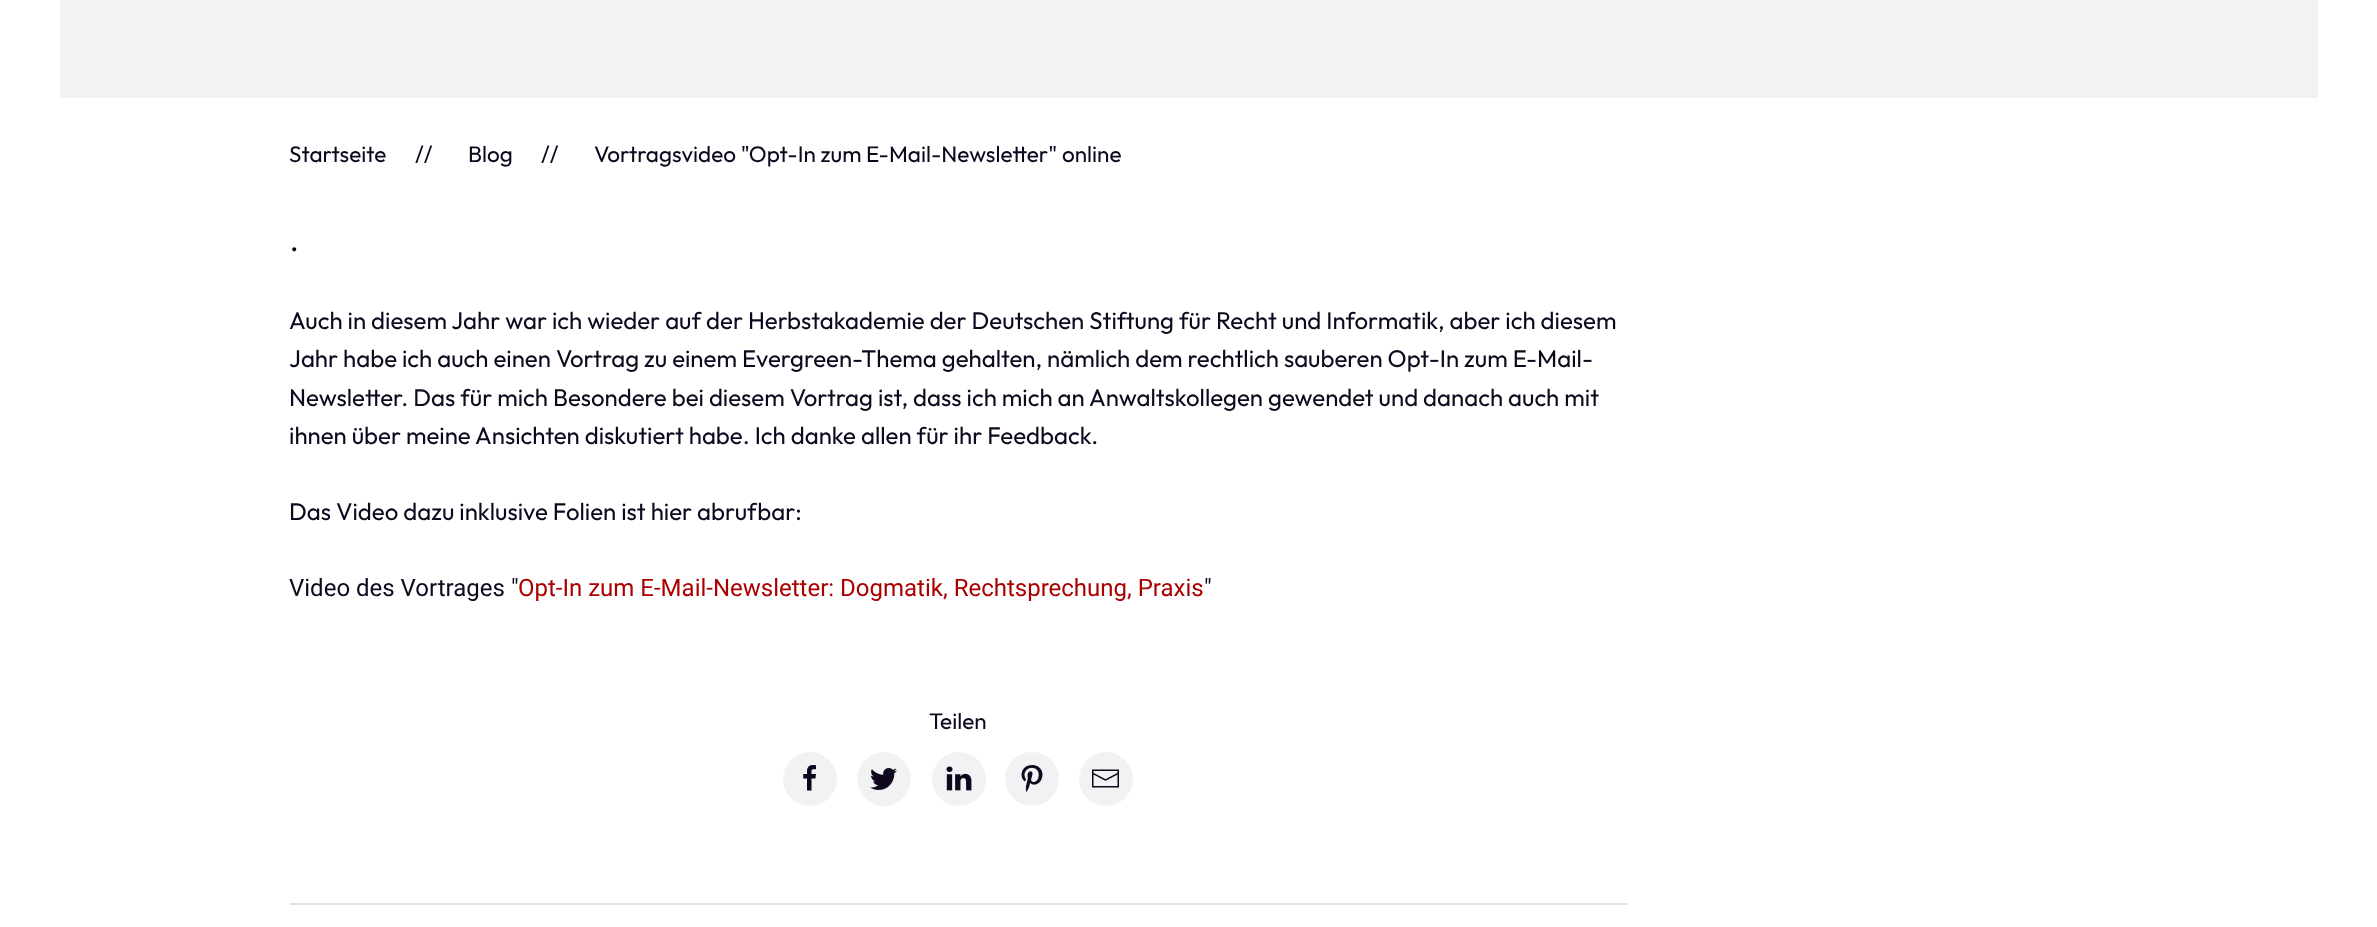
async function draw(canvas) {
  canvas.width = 2377
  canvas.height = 927
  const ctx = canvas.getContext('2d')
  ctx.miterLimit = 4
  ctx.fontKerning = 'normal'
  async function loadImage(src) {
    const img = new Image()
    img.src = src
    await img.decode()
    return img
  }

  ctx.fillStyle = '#fff'
  ctx.fillRect(0, 0, 2377, 927)
  ctx.fillStyle = '#f1f2f3'
  ctx.fillRect(60, 0, 2258, 98)
  ctx.font = '22.5px Outfit'
  ctx.fillStyle = '#0e071d'
  ctx.fillText('Startseite', 289, 162)
  ctx.fillText('//', 415, 162)
  ctx.fillText('Blog', 468, 162)
  ctx.fillText('//', 541, 162)
  ctx.fillText('Vortragsvideo "Opt-In zum E-Mail-Newsletter" online', 594, 162)
  ctx.font = '300 36px Outfit'
  ctx.fillStyle = '#030308'
  ctx.fillText('.', 289, 251)
  ctx.font = '24px Outfit'
  ctx.fillStyle = '#0e071d'
  ctx.fillText('Auch in diesem Jahr war ich wieder auf der Herbstakademie der Deutschen Stiftung für Recht und Informatik, aber ich diesem', 289, 329)
  ctx.fillText('Jahr habe ich auch einen Vortrag zu einem Evergreen-Thema gehalten, nämlich dem rechtlich sauberen Opt-In zum E-Mail-', 289, 367)
  ctx.fillText('Newsletter. Das für mich Besondere bei diesem Vortrag ist, dass ich mich an Anwaltskollegen gewendet und danach auch mit', 289, 406)
  ctx.fillText('ihnen über meine Ansichten diskutiert habe. Ich danke allen für ihr Feedback.', 289, 444)
  ctx.fillText('Das Video dazu inklusive Folien ist hier abrufbar:', 289, 520)
  ctx.font = '24px Roboto'
  ctx.fillText('Video des Vortrages "', 289, 596)
  ctx.fillStyle = '#a00'
  ctx.fillText('Opt-In zum E-Mail-Newsletter: Dogmatik, Rechtsprechung, Praxis', 518, 596)
  ctx.fillStyle = '#0e071d'
  ctx.fillText('"', 1204, 596)
  ctx.font = '22.5px Outfit'
  ctx.fillText('Teilen', 929, 729)
  ctx.fillStyle = '#f1f2f3'
  ctx.beginPath()
  ctx.arc(810, 779, 27, 0, 2 * Math.PI)
  ctx.fill()
  ctx.drawImage(await loadImage('image0.png'), 803, 765, 13, 26)
  ctx.beginPath()
  ctx.arc(884, 779, 27, 0, 2 * Math.PI)
  ctx.fill()
  ctx.drawImage(await loadImage('image1.png'), 870, 768, 27, 22)
  ctx.beginPath()
  ctx.arc(959, 779, 27, 0, 2 * Math.PI)
  ctx.fill()
  ctx.drawImage(await loadImage('image2.png'), 946, 766, 26, 25)
  ctx.beginPath()
  ctx.arc(1032, 779, 27, 0, 2 * Math.PI)
  ctx.fill()
  ctx.drawImage(await loadImage('image3.png'), 1021, 765, 22, 27)
  ctx.beginPath()
  ctx.arc(1106, 779, 27, 0, 2 * Math.PI)
  ctx.fill()
  ctx.drawImage(await loadImage('image4.png'), 1092, 769, 27, 19)
  ctx.fillStyle = '#e6e1e6'
  ctx.fillRect(290, 903, 1338, 2)
}

draw(document.querySelector('canvas'))
